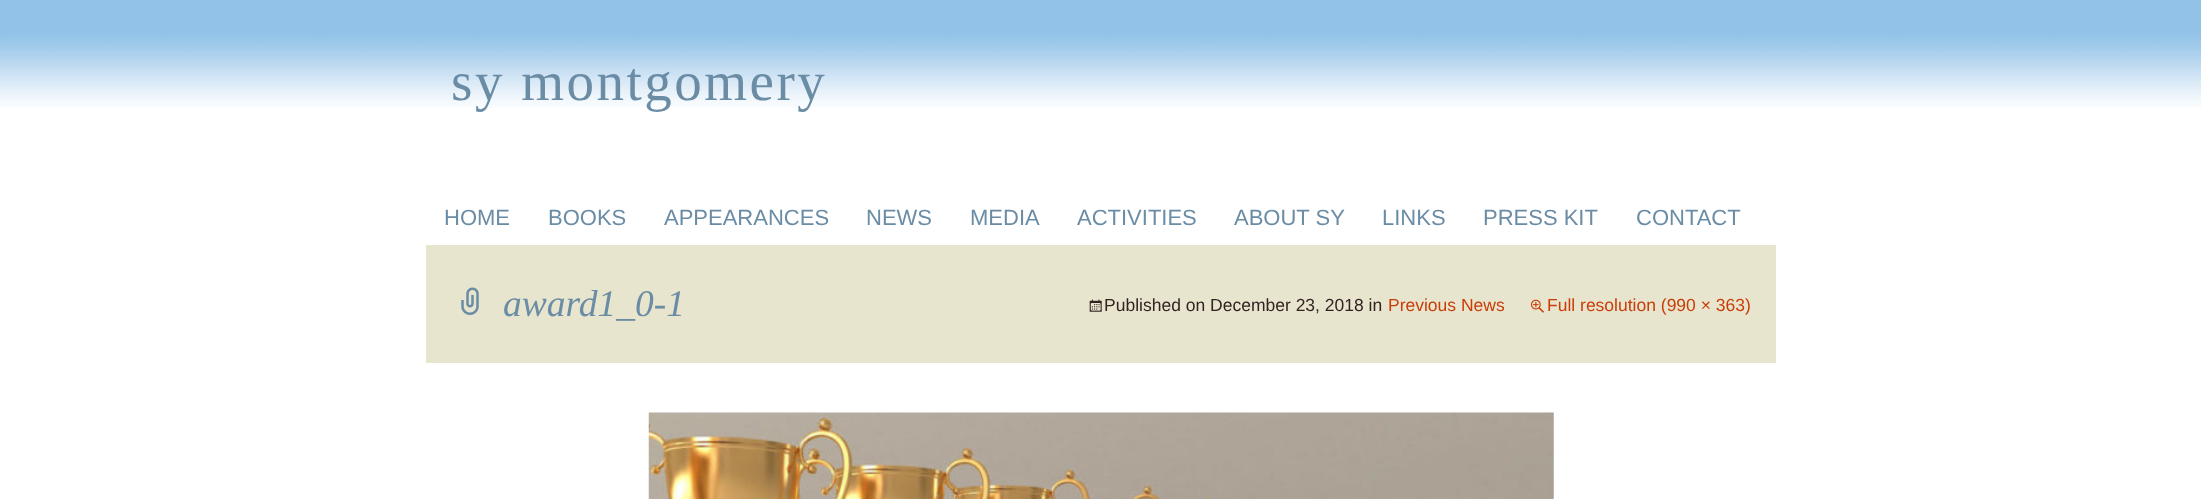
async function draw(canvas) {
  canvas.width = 2201
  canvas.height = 499
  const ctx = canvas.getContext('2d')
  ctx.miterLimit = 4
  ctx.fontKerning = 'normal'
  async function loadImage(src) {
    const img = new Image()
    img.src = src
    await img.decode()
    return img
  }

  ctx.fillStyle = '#fff'
  ctx.fillRect(0, 0, 2201, 499)
  ctx.drawImage(await loadImage('image0.png'), 0, 0, 2201, 108)
  ctx.letterSpacing = '2.5px'
  ctx.font = '55px Liberation Serif'
  ctx.fillStyle = '#6a8ca5'
  ctx.fillText('sy montgomery', 451, 100)
  ctx.letterSpacing = '0px'
  ctx.font = '22px Liberation Sans'
  ctx.fillText('HOME', 444, 225)
  ctx.fillText('BOOKS', 548, 225)
  ctx.fillText('APPEARANCES', 664, 225)
  ctx.fillText('NEWS', 866, 225)
  ctx.fillText('MEDIA', 970, 225)
  ctx.fillText('ACTIVITIES', 1077, 225)
  ctx.fillText('ABOUT SY', 1234, 225)
  ctx.fillText('LINKS', 1382, 225)
  ctx.fillText('PRESS KIT', 1483, 225)
  ctx.fillText('CONTACT', 1636, 225)
  ctx.fillStyle = '#e8e5ce'
  ctx.fillRect(426, 245, 1350, 118)
  ctx.drawImage(await loadImage('image1.png'), 461, 287, 18, 28)
  ctx.font = 'italic 37.5px Liberation Serif'
  ctx.fillStyle = '#6a8ca5'
  ctx.fillText('award1_0-1', 503, 316)
  ctx.drawImage(await loadImage('image2.png'), 1089, 299, 13, 13)
  ctx.font = '17.5px Liberation Sans'
  ctx.fillStyle = '#322'
  ctx.fillText('Published on December 23, 2018 in', 1104, 311)
  ctx.fillStyle = '#ca3c08'
  ctx.fillText('Previous News', 1388, 311)
  ctx.drawImage(await loadImage('image3.png'), 1530, 299, 14, 14)
  ctx.fillText('Full resolution (990 × 363)', 1547, 311)
  ctx.drawImage(await loadImage('image4.png'), 648, 412, 906, 87)
}

draw(document.querySelector('canvas'))
